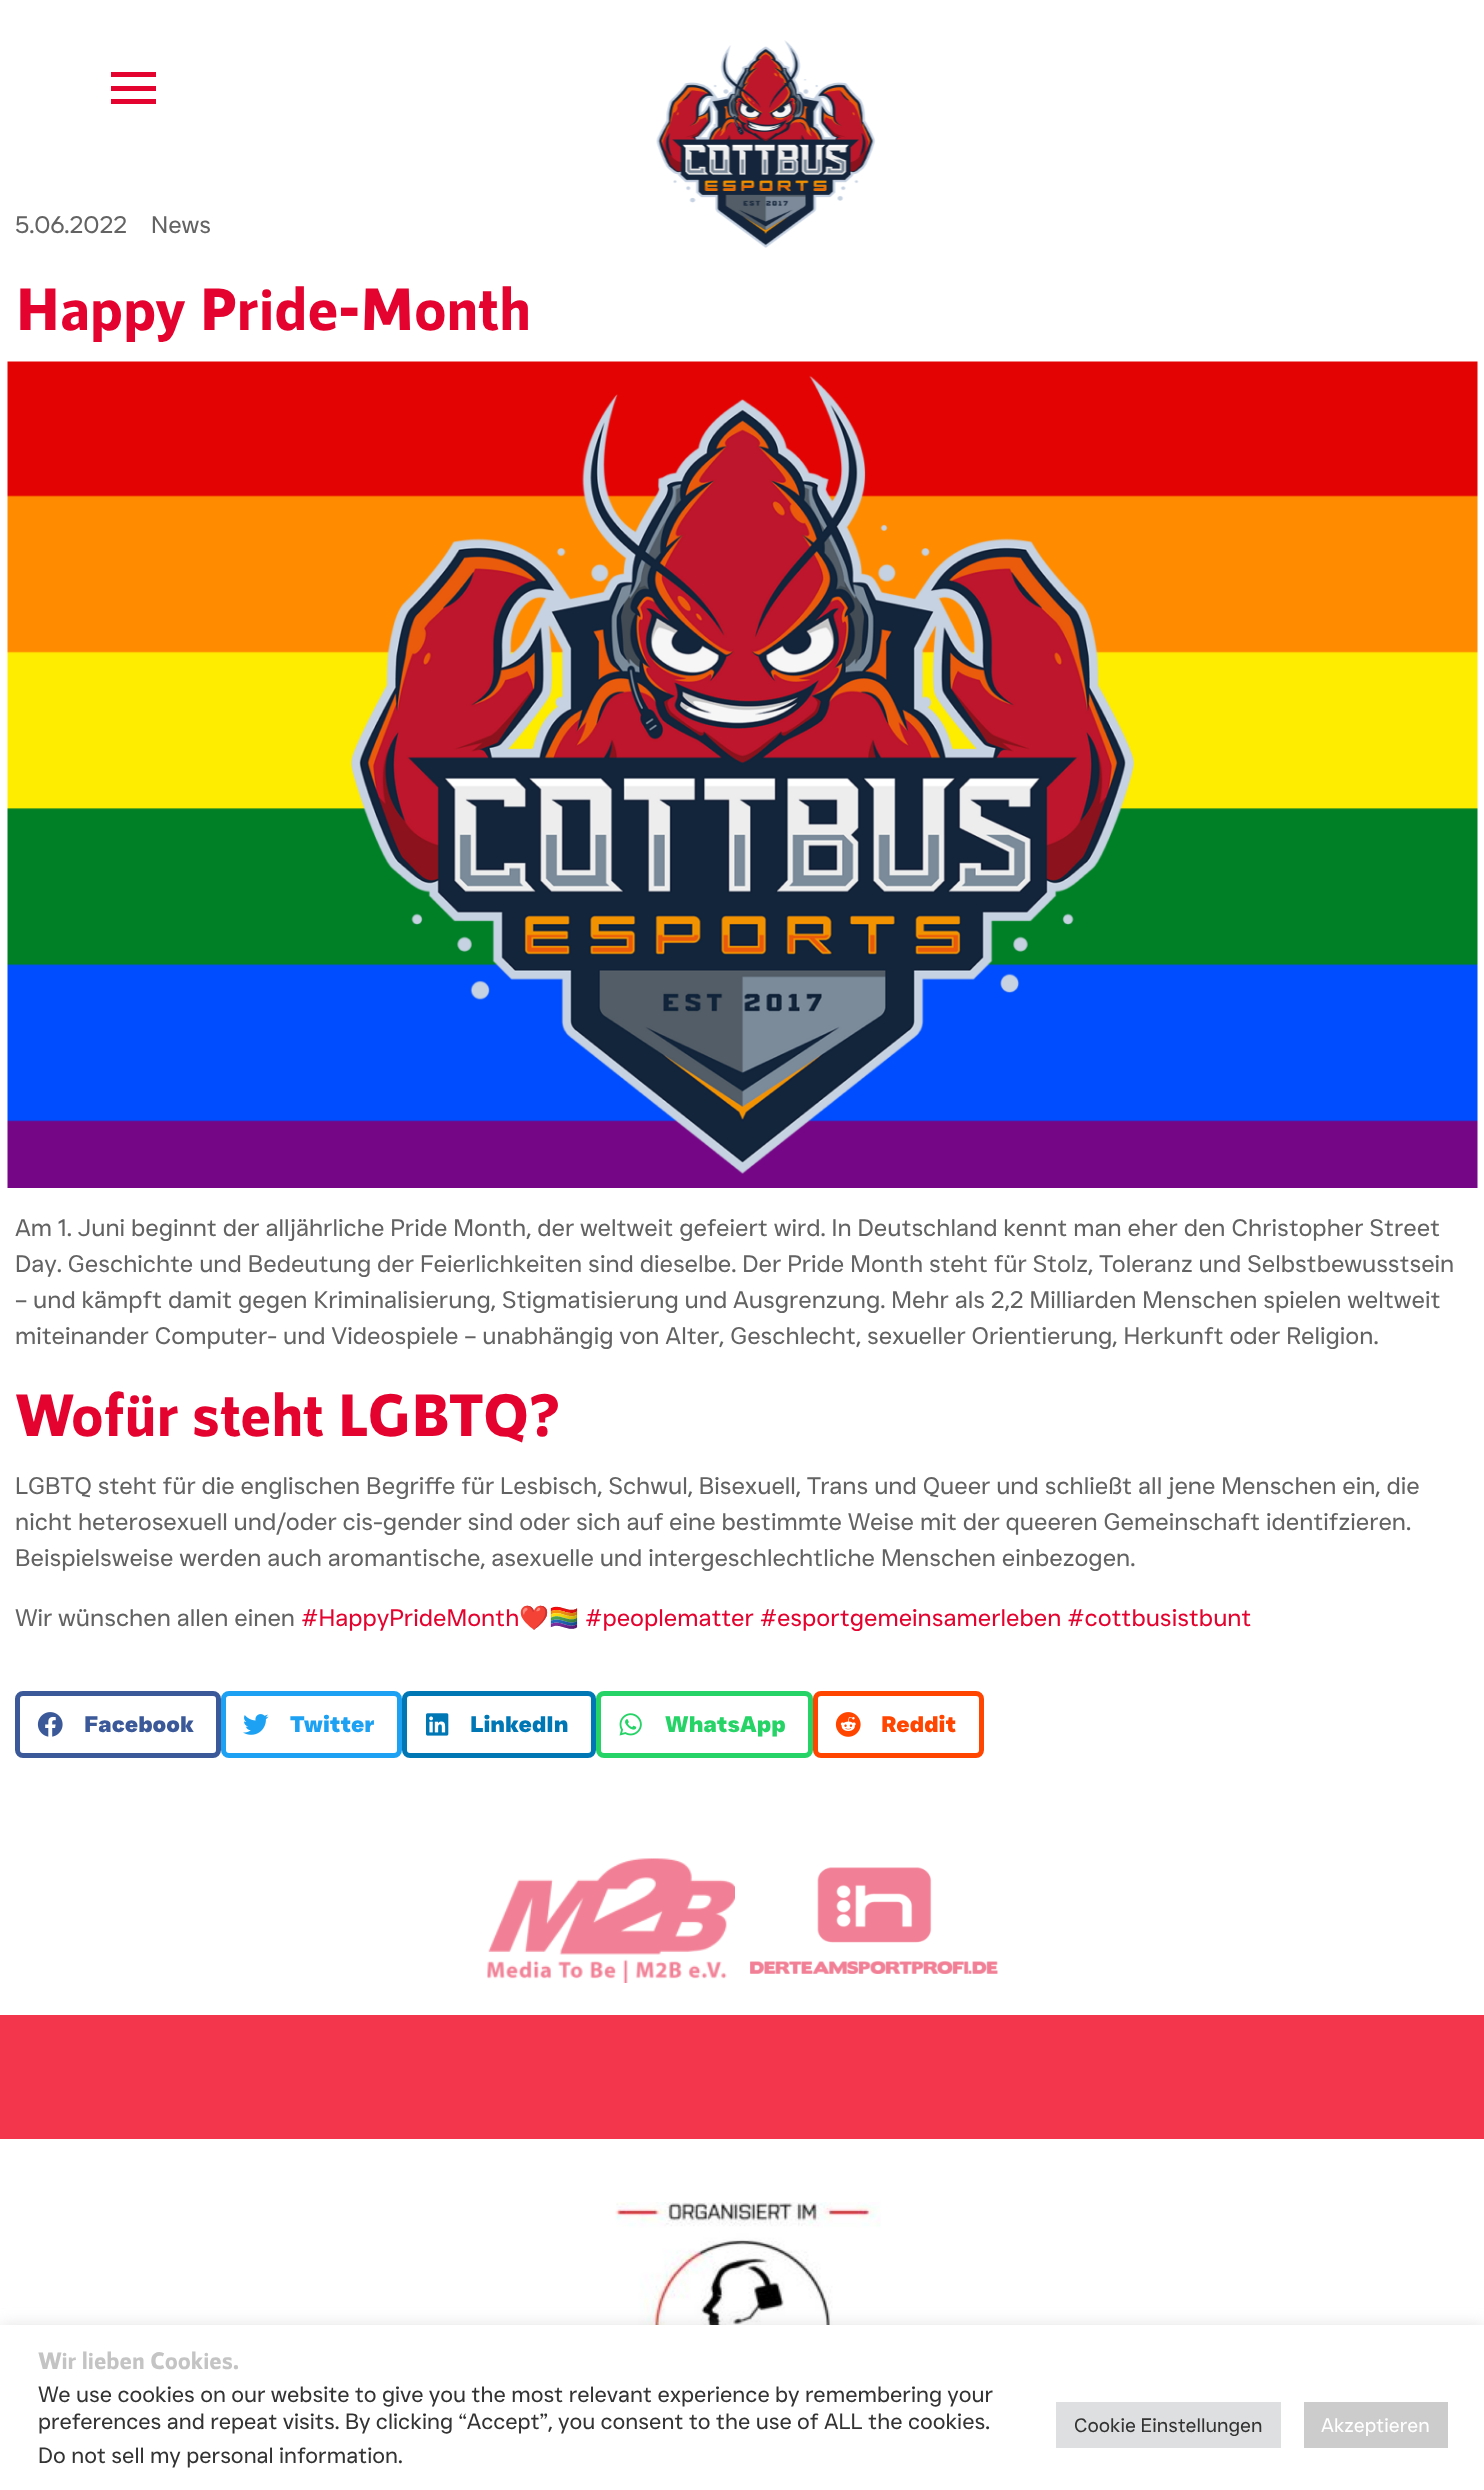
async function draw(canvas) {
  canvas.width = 1484
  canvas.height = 2490
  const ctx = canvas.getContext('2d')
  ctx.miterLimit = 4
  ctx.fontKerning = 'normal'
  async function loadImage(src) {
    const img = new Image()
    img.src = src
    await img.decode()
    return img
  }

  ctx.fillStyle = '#fff'
  ctx.fillRect(0, 0, 1484, 2490)
  ctx.fillStyle = '#e4032e'
  ctx.fillRect(111, 72, 45, 5)
  ctx.fillRect(111, 86, 45, 5)
  ctx.fillRect(111, 99, 45, 5)
  ctx.drawImage(await loadImage('image0.png'), 656, 40, 220, 208)
  ctx.font = '24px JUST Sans'
  ctx.fillStyle = '#636363'
  ctx.fillText('5.06.2022', 15, 233)
  ctx.fillText('News', 151, 233)
  ctx.font = '800 60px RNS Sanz'
  ctx.fillStyle = '#e4032e'
  ctx.fillText('Happy Pride-Month', 15, 330)
  ctx.drawImage(await loadImage('image1.png'), 7, 361, 1471, 827)
  ctx.font = '24px JUST Sans'
  ctx.fillStyle = '#636363'
  ctx.fillText('Am 1. Juni beginnt der alljährliche Pride Month, der weltweit gefeiert wird. In Deutschland kennt man eher den Christopher Street', 15, 1236)
  ctx.fillText('Day. Geschichte und Bedeutung der Feierlichkeiten sind dieselbe. Der Pride Month steht für Stolz, Toleranz und Selbstbewusstsein', 15, 1272)
  ctx.fillText('– und kämpft damit gegen Kriminalisierung, Stigmatisierung und Ausgrenzung. Mehr als 2,2 Milliarden Menschen spielen weltweit', 15, 1308)
  ctx.fillText('miteinander Computer- und Videospiele – unabhängig von Alter, Geschlecht, sexueller Orientierung, Herkunft oder Religion.', 15, 1344)
  ctx.font = '800 60px RNS Sanz'
  ctx.fillStyle = '#e4032e'
  ctx.fillText('Wofür steht LGBTQ?', 15, 1436)
  ctx.font = '24px JUST Sans'
  ctx.fillStyle = '#636363'
  ctx.fillText('LGBTQ steht für die englischen Begriffe für Lesbisch, Schwul, Bisexuell, Trans und Queer und schließt all jene Menschen ein, die', 15, 1494)
  ctx.fillText('nicht heterosexuell und/oder cis-gender sind oder sich auf eine bestimmte Weise mit der queeren Gemeinschaft identifzieren.', 15, 1530)
  ctx.fillText('Beispielsweise werden auch aromantische, asexuelle und intergeschlechtliche Menschen einbezogen.', 15, 1566)
  ctx.fillText('Wir wünschen allen einen', 15, 1626)
  ctx.fillStyle = '#e4032e'
  ctx.fillText('#HappyPrideMonth', 301, 1626)
  ctx.font = '24px Noto Color Emoji'
  ctx.fillText('❤️🏳️‍🌈', 519, 1626)
  ctx.font = '24px JUST Sans'
  ctx.fillText('#peoplematter #esportgemeinsamerleben #cottbusistbunt', 585, 1626)
  ctx.beginPath()
  ctx.roundRect(17.5, 1693.5, 201, 62, 5.5)
  ctx.strokeStyle = '#3b5998'
  ctx.lineWidth = 5
  ctx.stroke()
  ctx.drawImage(await loadImage('image2.png'), 37, 1712, 26, 25)
  ctx.font = '800 22.5px JUST Sans'
  ctx.fillStyle = '#3b5998'
  ctx.fillText('Facebook', 84, 1732)
  ctx.beginPath()
  ctx.roundRect(223.5, 1693.5, 176, 62, 5.5)
  ctx.strokeStyle = '#1da1f2'
  ctx.stroke()
  ctx.drawImage(await loadImage('image3.png'), 243, 1714, 26, 21)
  ctx.fillStyle = '#1da1f2'
  ctx.fillText('Twitter', 290, 1732)
  ctx.beginPath()
  ctx.roundRect(404.5, 1693.5, 189, 62, 5.5)
  ctx.strokeStyle = '#0077b5'
  ctx.stroke()
  ctx.drawImage(await loadImage('image4.png'), 426, 1713, 23, 23)
  ctx.fillStyle = '#0077b5'
  ctx.fillText('LinkedIn', 470, 1732)
  ctx.beginPath()
  ctx.roundRect(598.5, 1693.5, 212, 62, 5.5)
  ctx.strokeStyle = '#25d366'
  ctx.stroke()
  ctx.drawImage(await loadImage('image5.png'), 619, 1713, 23, 23)
  ctx.fillStyle = '#25d366'
  ctx.fillText('WhatsApp', 665, 1732)
  ctx.beginPath()
  ctx.roundRect(815.5, 1693.5, 166, 62, 5.5)
  ctx.strokeStyle = '#ff4500'
  ctx.stroke()
  ctx.drawImage(await loadImage('image6.png'), 835, 1712, 26, 25)
  ctx.fillStyle = '#ff4500'
  ctx.fillText('Reddit', 881, 1732)
  ctx.drawImage(await loadImage('image7.png'), 487, 1858, 248, 125)
  ctx.drawImage(await loadImage('image8.png'), 750, 1867, 248, 107)
  ctx.fillStyle = '#f4364c'
  ctx.fillRect(0, 2015, 1484, 124)
  ctx.drawImage(await loadImage('image9.png'), 615, 2202, 266, 123)
  ctx.fillStyle = '#acabab4d'
  ctx.filter = 'blur(7.5px)'
  ctx.beginPath()
  ctx.rect(0, 2324, 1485, 165)
  ctx.fill()
  ctx.filter = 'none'
  ctx.fillStyle = '#fff'
  ctx.fillRect(0, 2325, 1484, 165)
  ctx.font = '800 24px RNS Sanz'
  ctx.fillStyle = '#c4c4c4'
  ctx.fillText('Wir lieben Cookies.', 38, 2369)
  ctx.font = '22px JUST Sans'
  ctx.fillStyle = '#333'
  ctx.fillText('We use cookies on our website to give you the most relevant experience by remembering your', 38, 2402)
  ctx.fillText('preferences and repeat visits. By clicking “Accept”, you consent to the use of ALL the cookies.', 38, 2429)
  ctx.fillText('Do not sell my personal information.', 38, 2463)
  ctx.fillStyle = '#dedfe0'
  ctx.fillRect(1056, 2402, 225, 46)
  ctx.font = '19.5px JUST Sans'
  ctx.fillStyle = '#333'
  ctx.fillText('Cookie Einstellungen', 1074, 2432)
  ctx.fillStyle = '#ccc'
  ctx.fillRect(1304, 2402, 144, 46)
  ctx.fillStyle = '#fff'
  ctx.fillText('Akzeptieren', 1321, 2432)
}

draw(document.querySelector('canvas'))
